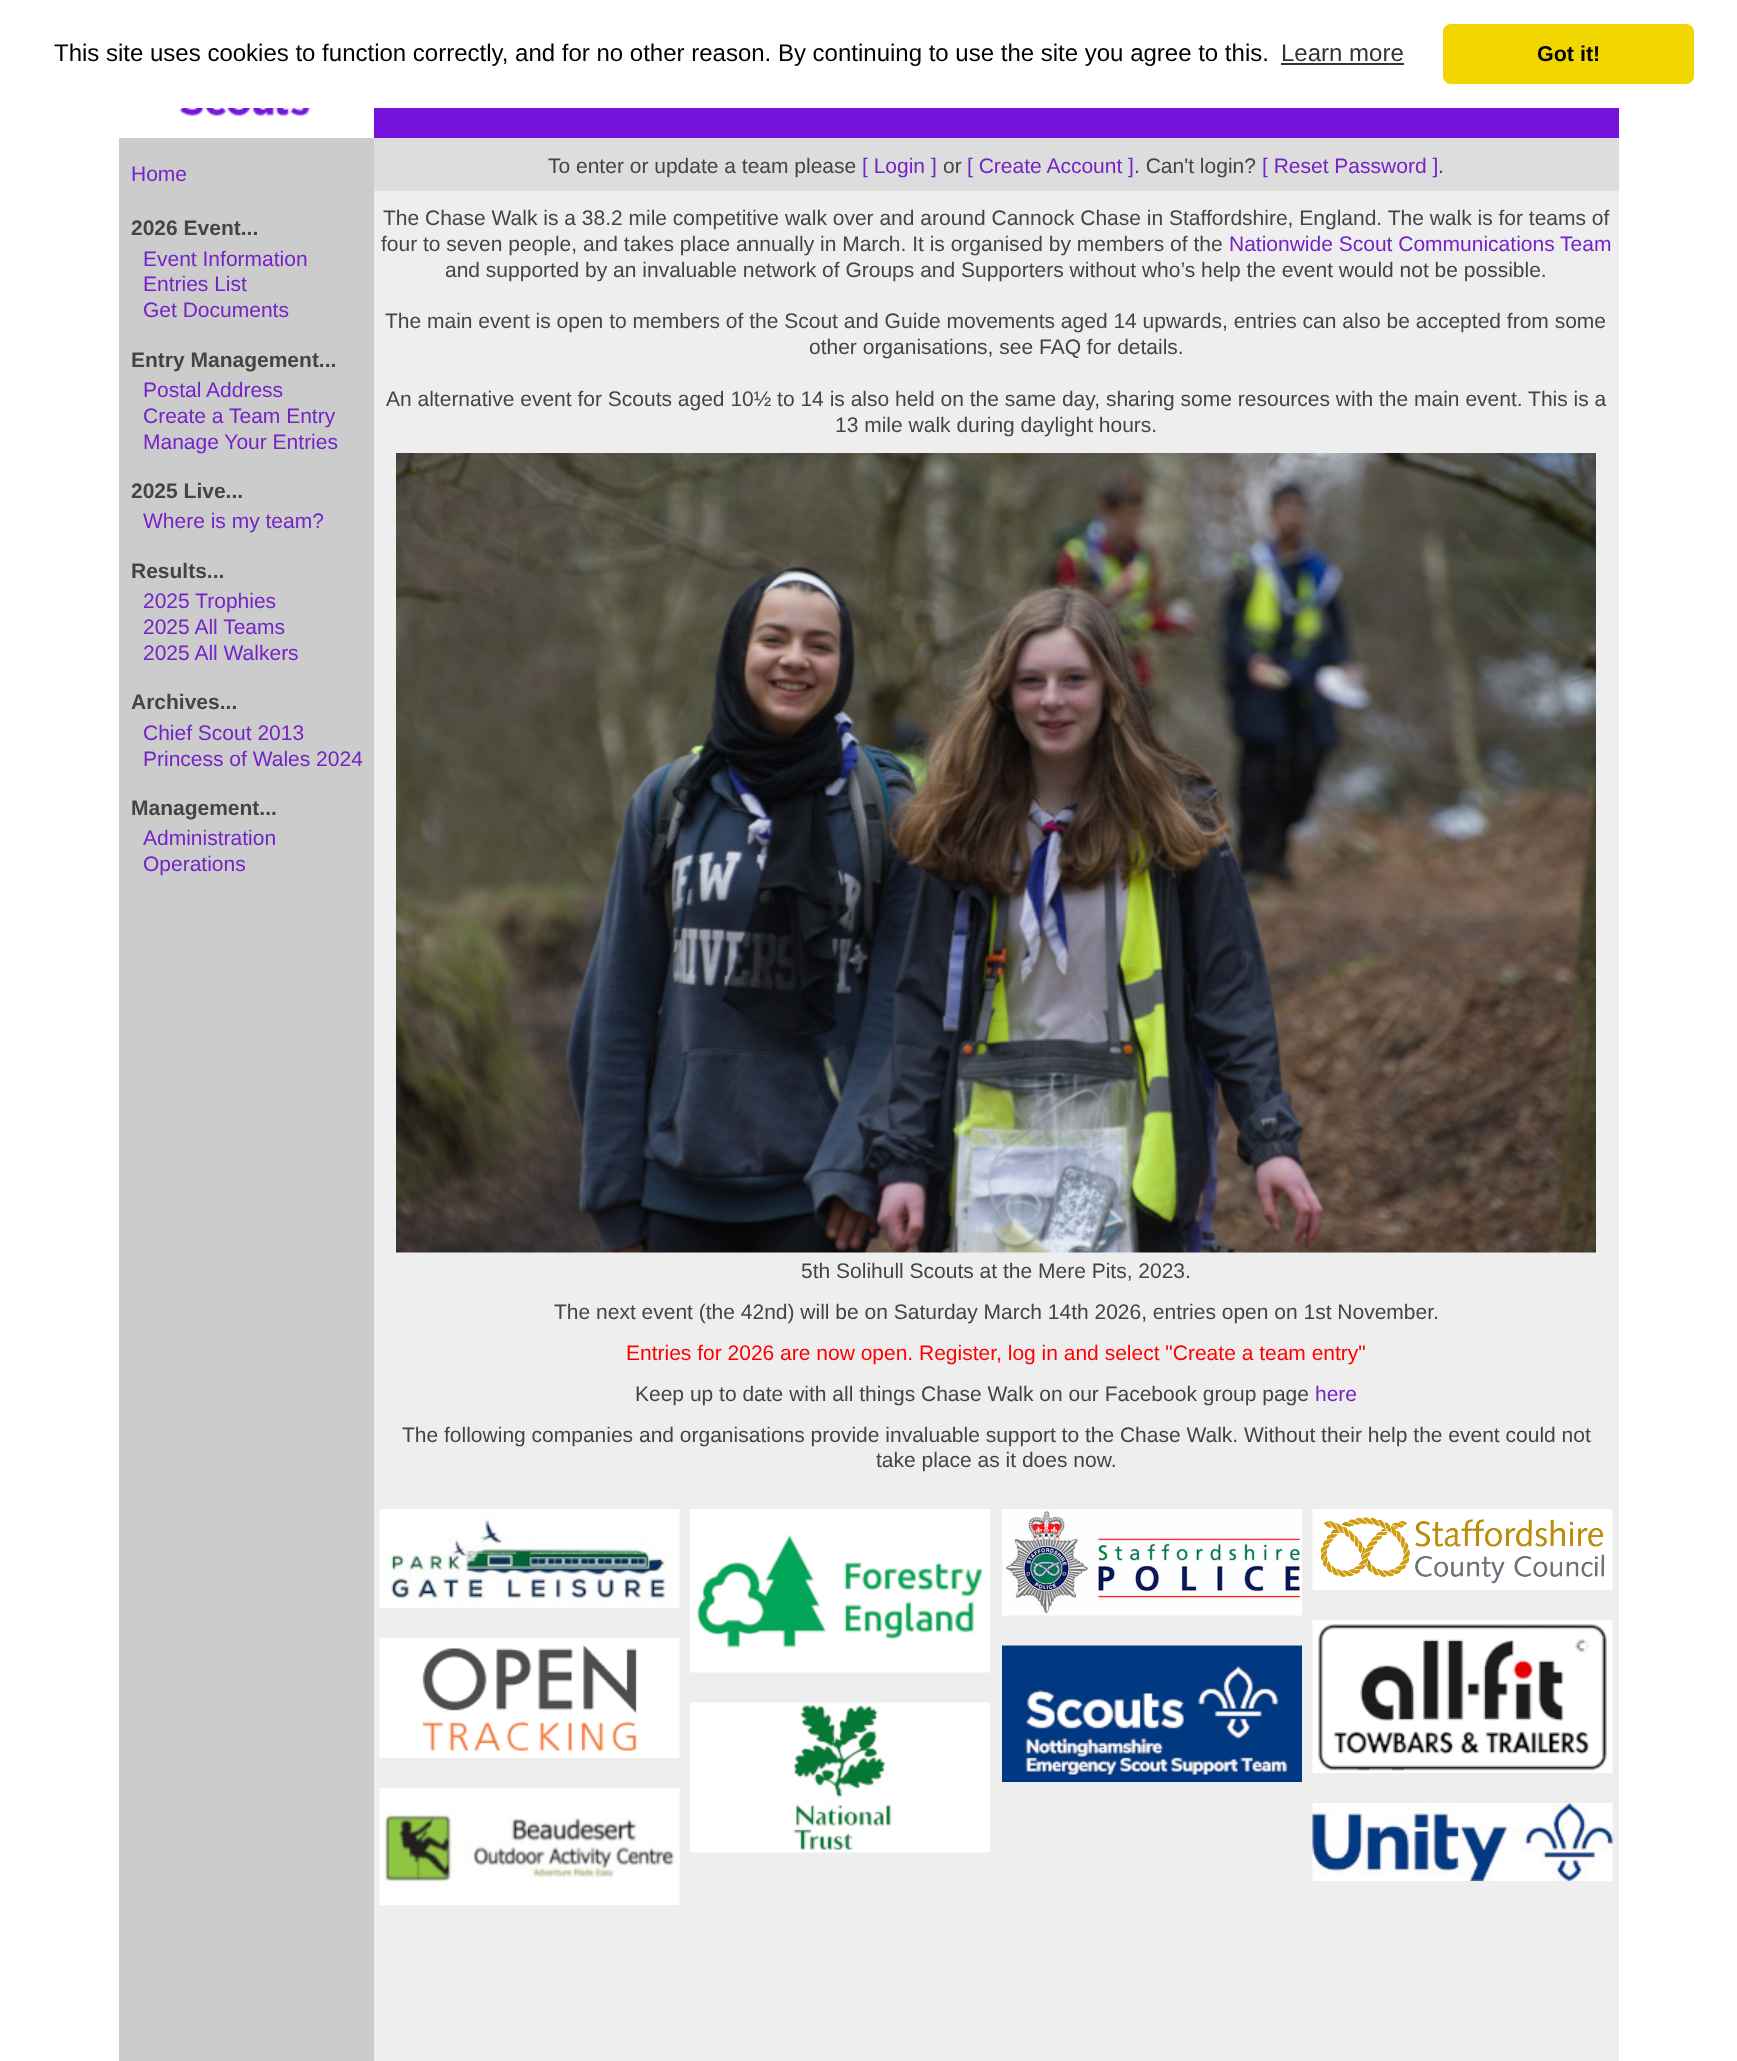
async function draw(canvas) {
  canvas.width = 1737
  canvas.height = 2061
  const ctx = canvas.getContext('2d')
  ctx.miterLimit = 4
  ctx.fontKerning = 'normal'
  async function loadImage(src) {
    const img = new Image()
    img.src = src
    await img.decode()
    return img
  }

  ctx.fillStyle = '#fff'
  ctx.fillRect(0, 0, 1737, 2061)
  ctx.font = '24px Liberation Sans'
  ctx.fillStyle = '#000'
  ctx.fillText('This site uses cookies to function correctly, and for no other reason. By continuing to use the site you agree to this.', 54, 61)
  ctx.fillStyle = '#333'
  ctx.fillText('Learn more', 1281, 61)
  ctx.fillRect(1281, 63, 123, 2)
  ctx.fillStyle = '#f1d600'
  ctx.beginPath()
  ctx.roundRect(1443, 24, 251, 60, 8)
  ctx.fill()
  ctx.font = 'bold 21.5px Liberation Sans'
  ctx.fillStyle = '#000'
  ctx.fillText('Got it!', 1537, 61)
  ctx.drawImage(await loadImage('image0.png'), 179, 108, 131, 8)
  ctx.fillStyle = '#7413dc'
  ctx.fillRect(374, 108, 1245, 30)
  ctx.fillStyle = '#ccc'
  ctx.fillRect(119, 138, 255, 1923)
  ctx.font = '21px Liberation Sans'
  ctx.fillStyle = '#7523c7'
  ctx.fillText('Home', 131, 181)
  ctx.font = 'bold 21px Liberation Sans'
  ctx.fillStyle = '#444'
  ctx.fillText('2026 Event...', 131, 235)
  ctx.font = '21px Liberation Sans'
  ctx.fillStyle = '#7523c7'
  ctx.fillText('Event Information', 143, 266)
  ctx.fillText('Entries List', 143, 291)
  ctx.fillText('Get Documents', 143, 317)
  ctx.font = 'bold 21px Liberation Sans'
  ctx.fillStyle = '#444'
  ctx.fillText('Entry Management...', 131, 367)
  ctx.font = '21px Liberation Sans'
  ctx.fillStyle = '#7523c7'
  ctx.fillText('Postal Address', 143, 397)
  ctx.fillText('Create a Team Entry', 143, 423)
  ctx.fillText('Manage Your Entries', 143, 449)
  ctx.font = 'bold 21px Liberation Sans'
  ctx.fillStyle = '#444'
  ctx.fillText('2025 Live...', 131, 498)
  ctx.font = '21px Liberation Sans'
  ctx.fillStyle = '#7523c7'
  ctx.fillText('Where is my team?', 143, 528)
  ctx.font = 'bold 21px Liberation Sans'
  ctx.fillStyle = '#444'
  ctx.fillText('Results...', 131, 578)
  ctx.font = '21px Liberation Sans'
  ctx.fillStyle = '#7523c7'
  ctx.fillText('2025 Trophies', 143, 608)
  ctx.fillText('2025 All Teams', 143, 634)
  ctx.fillText('2025 All Walkers', 143, 660)
  ctx.font = 'bold 21px Liberation Sans'
  ctx.fillStyle = '#444'
  ctx.fillText('Archives...', 131, 709)
  ctx.font = '21px Liberation Sans'
  ctx.fillStyle = '#7523c7'
  ctx.fillText('Chief Scout 2013', 143, 740)
  ctx.fillText('Princess of Wales 2024', 143, 766)
  ctx.font = 'bold 21px Liberation Sans'
  ctx.fillStyle = '#444'
  ctx.fillText('Management...', 131, 815)
  ctx.font = '21px Liberation Sans'
  ctx.fillStyle = '#7523c7'
  ctx.fillText('Administration', 143, 845)
  ctx.fillText('Operations', 143, 871)
  ctx.fillStyle = '#ddd'
  ctx.fillRect(374, 138, 1245, 53)
  ctx.fillStyle = '#444'
  ctx.fillText('To enter or update a team please', 548, 173)
  ctx.fillStyle = '#7523c7'
  ctx.fillText('[ Login ]', 862, 173)
  ctx.fillStyle = '#444'
  ctx.fillText('or', 943, 173)
  ctx.fillStyle = '#7523c7'
  ctx.fillText('[ Create Account ]', 967, 173)
  ctx.fillStyle = '#444'
  ctx.fillText('. Can\'t login?', 1134, 173)
  ctx.fillStyle = '#7523c7'
  ctx.fillText('[ Reset Password ]', 1262, 173)
  ctx.fillStyle = '#444'
  ctx.fillText('.', 1438, 173)
  ctx.fillStyle = '#eee'
  ctx.fillRect(374, 191, 1245, 1870)
  ctx.fillStyle = '#444'
  ctx.fillText('The Chase Walk is a 38.2 mile competitive walk over and around Cannock Chase in Staffordshire, England. The walk is for teams of', 383, 225)
  ctx.fillText('four to seven people, and takes place annually in March. It is organised by members of the', 381, 251)
  ctx.fillStyle = '#7523c7'
  ctx.fillText('Nationwide Scout Communications Team', 1229, 251)
  ctx.fillStyle = '#444'
  ctx.fillText('and supported by an invaluable network of Groups and Supporters without who’s help the event would not be possible.', 445, 277)
  ctx.fillText('The main event is open to members of the Scout and Guide movements aged 14 upwards, entries can also be accepted from some', 385, 328)
  ctx.fillText('other organisations, see FAQ for details.', 809, 354)
  ctx.fillText('An alternative event for Scouts aged 10½ to 14 is also held on the same day, sharing some resources with the main event. This is a', 386, 406)
  ctx.fillText('13 mile walk during daylight hours.', 835, 432)
  ctx.drawImage(await loadImage('image1.png'), 396, 453, 1200, 800)
  ctx.fillText('5th Solihull Scouts at the Mere Pits, 2023.', 801, 1278)
  ctx.fillText('The next event (the 42nd) will be on Saturday March 14th 2026, entries open on 1st November.', 554, 1319)
  ctx.fillStyle = '#f00'
  ctx.fillText('Entries for 2026 are now open. Register, log in and select "Create a team entry"', 626, 1360)
  ctx.fillStyle = '#444'
  ctx.fillText('Keep up to date with all things Chase Walk on our Facebook group page', 635, 1401)
  ctx.fillStyle = '#7523c7'
  ctx.fillText('here', 1315, 1401)
  ctx.fillStyle = '#444'
  ctx.fillText('The following companies and organisations provide invaluable support to the Chase Walk. Without their help the event could not', 402, 1442)
  ctx.fillText('take place as it does now.', 876, 1467)
  ctx.drawImage(await loadImage('image2.png'), 379, 1509, 301, 99)
  ctx.drawImage(await loadImage('image3.png'), 379, 1638, 301, 120)
  ctx.drawImage(await loadImage('image4.png'), 379, 1788, 301, 117)
  ctx.drawImage(await loadImage('image5.png'), 690, 1509, 300, 164)
  ctx.drawImage(await loadImage('image6.png'), 690, 1702, 300, 151)
  ctx.drawImage(await loadImage('image7.png'), 1002, 1509, 300, 107)
  ctx.drawImage(await loadImage('image8.png'), 1002, 1645, 300, 137)
  ctx.drawImage(await loadImage('image9.png'), 1312, 1509, 301, 81)
  ctx.drawImage(await loadImage('image10.png'), 1312, 1620, 301, 153)
  ctx.drawImage(await loadImage('image11.png'), 1312, 1803, 301, 78)
}

draw(document.querySelector('canvas'))
